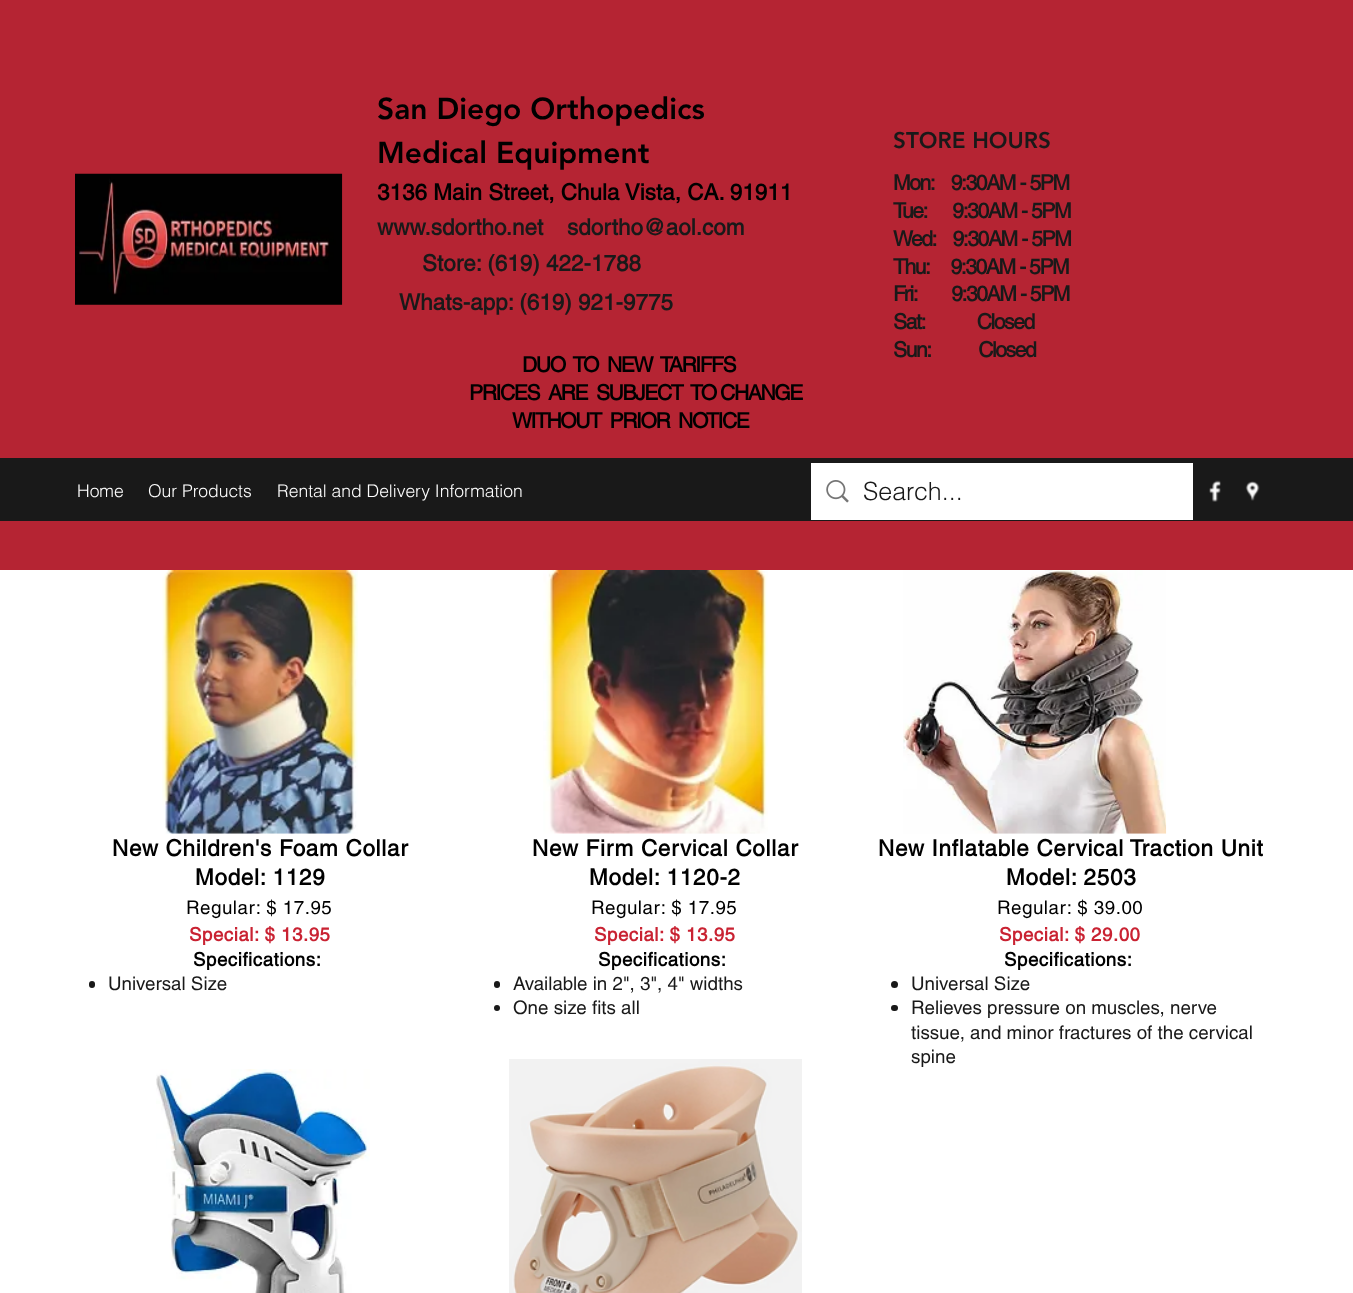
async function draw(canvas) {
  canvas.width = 1353
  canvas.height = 1293
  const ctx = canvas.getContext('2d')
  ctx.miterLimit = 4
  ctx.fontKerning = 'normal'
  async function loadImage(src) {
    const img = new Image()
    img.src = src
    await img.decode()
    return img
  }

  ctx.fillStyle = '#fff'
  ctx.fillRect(0, 0, 1353, 1293)
  ctx.fillStyle = '#b52433'
  ctx.fillRect(0, 0, 1353, 570)
  ctx.font = '900 30px "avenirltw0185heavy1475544"'
  ctx.fillStyle = '#000'
  ctx.fillText('San Diego Orthopedics', 377, 119)
  ctx.fillText('Medical Equipment', 377, 163)
  ctx.font = '900 22.5px "avenirltw0185heavy1475544"'
  ctx.fillStyle = '#191919'
  ctx.fillText('STORE HOURS', 893, 148)
  ctx.drawImage(await loadImage('image0.png'), 75, 173, 268, 132)
  ctx.font = 'bold 22.5px helvetica'
  ctx.fillStyle = '#000'
  ctx.fillText('3136 Main Street, Chula Vista, CA. 91911', 377, 200)
  ctx.letterSpacing = '-1.5px'
  ctx.font = 'bold 21.25px helvetica'
  ctx.fillStyle = '#191919'
  ctx.fillText('Mon:    9:30AM - 5PM', 893, 190)
  ctx.fillText('Tue:      9:30AM - 5PM', 893, 218)
  ctx.fillText('Wed:    9:30AM - 5PM', 893, 246)
  ctx.fillText('Thu:     9:30AM - 5PM', 893, 274)
  ctx.fillText('Fri:        9:30AM - 5PM', 893, 301)
  ctx.fillText('Sat:            Closed', 893, 329)
  ctx.fillText('Sun:           Closed', 893, 357)
  ctx.letterSpacing = '0px'
  ctx.font = 'bold 22.5px helvetica'
  ctx.fillText('www.sdortho.net', 377, 235)
  ctx.fillText('sdortho@aol.com', 567, 235)
  ctx.fillText('Store: (619) 422-1788', 422, 271)
  ctx.fillText('Whats-app: (619) 921-9775', 399, 310)
  ctx.letterSpacing = '-1.5px'
  ctx.font = 'bold 21.25px helvetica'
  ctx.fillStyle = '#000'
  ctx.fillText('DUO  TO  NEW  TARIFFS', 522, 372)
  ctx.fillText('PRICES  ARE  SUBJECT  TO CHANGE', 469, 400)
  ctx.fillText('WITHOUT  PRIOR  NOTICE', 512, 428)
  ctx.fillStyle = '#191919'
  ctx.fillRect(0, 458, 1353, 63)
  ctx.letterSpacing = '0px'
  ctx.font = '300 17.5px helvetica'
  ctx.fillStyle = '#fff'
  ctx.fillText('Home', 77, 497)
  ctx.fillText('Our Products', 148, 497)
  ctx.fillText('Rental and Delivery Information', 277, 497)
  ctx.fillRect(811, 463, 382, 57)
  ctx.drawImage(await loadImage('image1.png'), 826, 480, 23, 23)
  ctx.font = '300 25px helvetica'
  ctx.fillStyle = '#191919'
  ctx.fillText('Search...', 863, 500)
  ctx.drawImage(await loadImage('image2.png'), 1209, 480, 12, 22)
  ctx.drawImage(await loadImage('image3.png'), 1245, 481, 15, 20)
  ctx.drawImage(await loadImage('image4.png'), 162, 570, 196, 264)
  ctx.drawImage(await loadImage('image5.png'), 543, 570, 225, 264)
  ctx.drawImage(await loadImage('image6.png'), 903, 570, 264, 264)
  ctx.letterSpacing = '0.7px'
  ctx.font = 'bold 22.5px helvetica'
  ctx.fillStyle = '#000'
  ctx.fillText('New Children\'s Foam Collar', 112, 856)
  ctx.fillText('Model: 1129', 195, 885)
  ctx.letterSpacing = '0.5px'
  ctx.font = '18.75px helvetica'
  ctx.fillText('Regular: $ 17.95', 186, 914)
  ctx.font = 'bold 18.75px helvetica'
  ctx.fillStyle = '#c92232'
  ctx.fillText('Special: $ 13.95', 189, 941)
  ctx.fillStyle = '#000'
  ctx.fillText('Specifications:', 193, 966)
  ctx.fillStyle = '#191919'
  ctx.beginPath()
  ctx.roundRect(89, 981, 6, 7, 3)
  ctx.fill()
  ctx.letterSpacing = '0px'
  ctx.font = '18.75px helvetica'
  ctx.fillText('Universal Size', 108, 990)
  ctx.letterSpacing = '0.7px'
  ctx.font = 'bold 22.5px helvetica'
  ctx.fillStyle = '#000'
  ctx.fillText('New Firm Cervical Collar', 532, 856)
  ctx.fillText('Model: 1120-2', 589, 885)
  ctx.letterSpacing = '0.5px'
  ctx.font = '18.75px helvetica'
  ctx.fillText('Regular: $ 17.95', 591, 914)
  ctx.font = 'bold 18.75px helvetica'
  ctx.fillStyle = '#c92232'
  ctx.fillText('Special: $ 13.95', 594, 941)
  ctx.fillStyle = '#000'
  ctx.fillText('Specifications:', 598, 966)
  ctx.fillStyle = '#191919'
  ctx.beginPath()
  ctx.roundRect(494, 981, 6, 7, 3)
  ctx.fill()
  ctx.letterSpacing = '0px'
  ctx.font = '18.75px helvetica'
  ctx.fillText('Available in 2", 3", 4" widths', 513, 990)
  ctx.beginPath()
  ctx.arc(497, 1008, 3, 0, 2 * Math.PI)
  ctx.fill()
  ctx.fillText('One size fits all', 513, 1014)
  ctx.letterSpacing = '0.7px'
  ctx.font = 'bold 22.5px helvetica'
  ctx.fillStyle = '#000'
  ctx.fillText('New Inflatable Cervical Traction Unit', 878, 856)
  ctx.fillText('Model: 2503', 1006, 885)
  ctx.letterSpacing = '0.5px'
  ctx.font = '18.75px helvetica'
  ctx.fillText('Regular: $ 39.00', 997, 914)
  ctx.font = 'bold 18.75px helvetica'
  ctx.fillStyle = '#c92232'
  ctx.fillText('Special: $ 29.00', 999, 941)
  ctx.fillStyle = '#000'
  ctx.fillText('Specifications:', 1004, 966)
  ctx.fillStyle = '#191919'
  ctx.beginPath()
  ctx.arc(894.5, 984.5, 3.5, 0, 2 * Math.PI)
  ctx.fill()
  ctx.letterSpacing = '0px'
  ctx.font = '18.75px helvetica'
  ctx.fillText('Universal Size', 911, 990)
  ctx.beginPath()
  ctx.roundRect(891, 1005, 7, 6, 3)
  ctx.fill()
  ctx.fillText('Relieves pressure on muscles, nerve', 911, 1014)
  ctx.fillText('tissue, and minor fractures of the cervical', 911, 1039)
  ctx.fillText('spine', 911, 1063)
  ctx.drawImage(await loadImage('image7.png'), 156, 1069, 214, 224)
  ctx.drawImage(await loadImage('image8.png'), 509, 1059, 293, 234)
}

draw(document.querySelector('canvas'))
